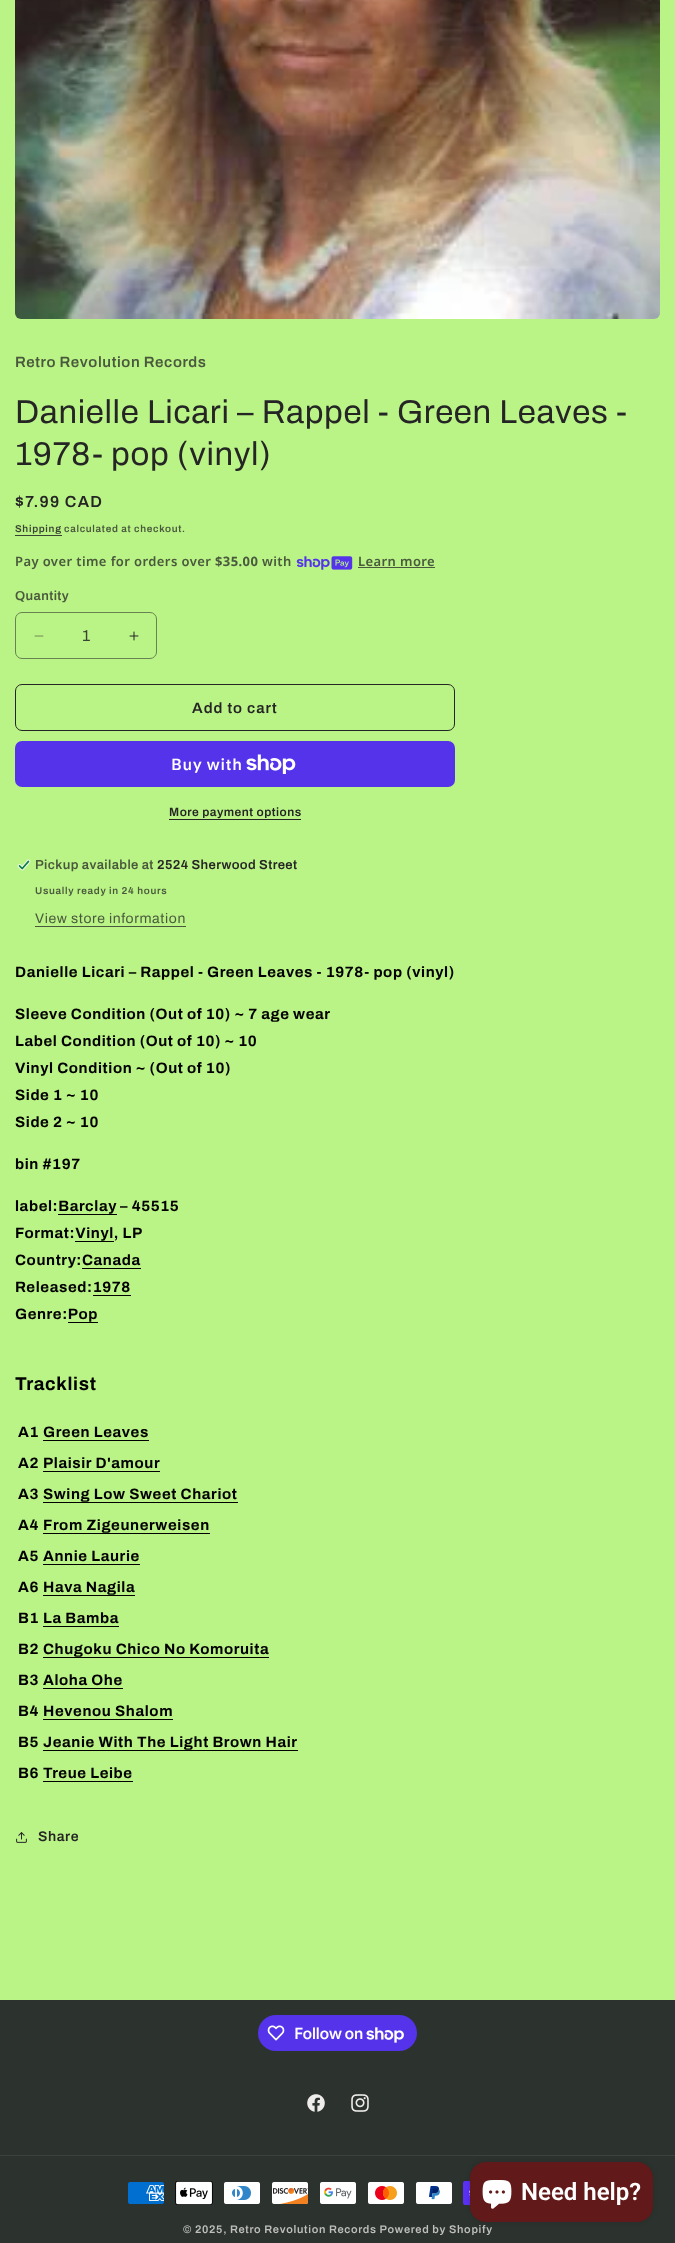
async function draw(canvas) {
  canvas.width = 675
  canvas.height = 2243
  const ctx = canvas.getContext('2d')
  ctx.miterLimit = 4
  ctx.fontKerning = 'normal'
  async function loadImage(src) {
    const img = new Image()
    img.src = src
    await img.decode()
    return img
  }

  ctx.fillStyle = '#baf486'
  ctx.fillRect(0, 0, 675, 2243)
  ctx.drawImage(await loadImage('image0.png'), 15, 0, 645, 319)
  ctx.letterSpacing = '0.6px'
  ctx.font = '600 15px Archivo'
  ctx.fillStyle = '#4a593d'
  ctx.fillText('Retro Revolution Records', 15, 367)
  ctx.letterSpacing = '0.65px'
  ctx.font = '33px Archivo'
  ctx.fillStyle = '#252525'
  ctx.fillText('Danielle Licari – Rappel - Green Leaves -', 15, 423)
  ctx.fillText('1978- pop (vinyl)', 15, 465)
  ctx.letterSpacing = '1.25px'
  ctx.font = '600 16px Archivo'
  ctx.fillText('$7.99 CAD', 15, 507)
  ctx.letterSpacing = '0.7px'
  ctx.font = '600 10px Archivo'
  ctx.fillStyle = '#3b4434'
  ctx.fillText('Shipping', 15, 532)
  ctx.fillRect(15, 535, 47, 1)
  ctx.fillStyle = '#4a593d'
  ctx.fillText('calculated at checkout.', 64, 532)
  ctx.letterSpacing = '0.4px'
  ctx.font = '600 13px Noto Sans'
  ctx.fillText('Pay over time for orders over', 15, 566)
  ctx.font = 'bold 13px Noto Sans'
  ctx.fillText('$35.00', 215, 566)
  ctx.font = '600 13px Noto Sans'
  ctx.fillText('with', 262, 566)
  ctx.drawImage(await loadImage('image1.png'), 296, 556, 57, 14)
  ctx.fillText('Learn more', 358, 566)
  ctx.fillRect(358, 567, 77, 1)
  ctx.font = '600 13px Archivo'
  ctx.fillText('Quantity', 15, 600)
  ctx.drawImage(await loadImage('image2.png'), 34, 635, 10, 2)
  ctx.drawImage(await loadImage('image3.png'), 129, 631, 10, 10)
  ctx.beginPath()
  ctx.roundRect(15.5, 612.5, 141, 46, 6.5)
  ctx.strokeStyle = '#688251'
  ctx.stroke()
  ctx.letterSpacing = '0px'
  ctx.font = '16px Archivo'
  ctx.fillStyle = '#3b4434'
  ctx.fillText('1', 82, 641)
  ctx.beginPath()
  ctx.roundRect(15.5, 684.5, 439, 46, 6.5)
  ctx.strokeStyle = '#252525'
  ctx.stroke()
  ctx.letterSpacing = '1px'
  ctx.font = '600 15px Archivo'
  ctx.fillStyle = '#252525'
  ctx.fillText('Add to cart', 192, 713)
  ctx.fillStyle = '#5433eb'
  ctx.beginPath()
  ctx.roundRect(15, 741, 440, 46, 7)
  ctx.fill()
  ctx.letterSpacing = '0.6px'
  ctx.font = '600 16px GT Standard'
  ctx.fillStyle = '#fff'
  ctx.fillText('Buy with', 171, 770)
  ctx.drawImage(await loadImage('image4.png'), 246, 754, 50, 20)
  ctx.letterSpacing = '0.5px'
  ctx.font = '600 12px Archivo'
  ctx.fillStyle = '#252525'
  ctx.fillText('More payment options', 169, 816)
  ctx.fillRect(169, 819, 132, 1)
  ctx.drawImage(await loadImage('image5.png'), 17, 859, 14, 12)
  ctx.letterSpacing = '0.4px'
  ctx.font = '600 13px Archivo'
  ctx.fillStyle = '#4a593d'
  ctx.fillText('Pickup available at', 35, 869)
  ctx.fillStyle = '#252525'
  ctx.fillText('2524 Sherwood Street', 157, 869)
  ctx.letterSpacing = '0.7px'
  ctx.font = '600 10px Archivo'
  ctx.fillStyle = '#4a593d'
  ctx.fillText('Usually ready in 24 hours', 35, 894)
  ctx.letterSpacing = '0.6px'
  ctx.font = '14px Archivo'
  ctx.fillText('View store information', 35, 923)
  ctx.fillRect(35, 926, 151, 1)
  ctx.font = 'bold 15px Archivo'
  ctx.fillStyle = '#000'
  ctx.fillText('Danielle Licari – Rappel - Green Leaves - 1978- pop (vinyl)', 15, 977)
  ctx.fillText('Sleeve Condition (Out of 10) ~ 7 age wear', 15, 1019)
  ctx.fillText('Label Condition (Out of 10) ~ 10', 15, 1046)
  ctx.fillText('Vinyl Condition ~ (Out of 10)', 15, 1073)
  ctx.fillText('Side 1 ~ 10', 15, 1100)
  ctx.fillText('Side 2 ~ 10', 15, 1127)
  ctx.fillText('bin #197', 15, 1169)
  ctx.fillText('label:Barclay', 15, 1211)
  ctx.fillRect(58, 1214, 59, 1)
  ctx.fillText('– 45515', 120, 1211)
  ctx.fillText('Format:Vinyl, LP', 15, 1238)
  ctx.fillRect(75, 1241, 39, 1)
  ctx.fillText('Country:Canada', 15, 1265)
  ctx.fillRect(82, 1268, 59, 1)
  ctx.fillText('Released:1978', 15, 1292)
  ctx.fillRect(93, 1295, 38, 1)
  ctx.fillText('Genre:Pop', 15, 1319)
  ctx.fillRect(68, 1322, 30, 1)
  ctx.letterSpacing = '0.65px'
  ctx.font = 'bold 18.5px Archivo'
  ctx.fillText('Tracklist', 15, 1390)
  ctx.letterSpacing = '0.6px'
  ctx.font = 'bold 15px Archivo'
  ctx.fillText('A1', 18, 1437)
  ctx.fillText('Green Leaves', 43, 1437)
  ctx.fillRect(43, 1440, 106, 1)
  ctx.fillText('A2', 18, 1468)
  ctx.fillText('Plaisir D\'amour', 43, 1468)
  ctx.fillRect(43, 1471, 117, 1)
  ctx.fillText('A3', 18, 1499)
  ctx.fillText('Swing Low Sweet Chariot', 43, 1499)
  ctx.fillRect(43, 1502, 195, 1)
  ctx.fillText('A4', 18, 1530)
  ctx.fillText('From Zigeunerweisen', 43, 1530)
  ctx.fillRect(43, 1533, 167, 1)
  ctx.fillText('A5', 18, 1561)
  ctx.fillText('Annie Laurie', 43, 1561)
  ctx.fillRect(43, 1564, 97, 1)
  ctx.fillText('A6', 18, 1592)
  ctx.fillText('Hava Nagila', 43, 1592)
  ctx.fillRect(43, 1595, 92, 1)
  ctx.fillText('B1', 18, 1623)
  ctx.fillText('La Bamba', 43, 1623)
  ctx.fillRect(43, 1626, 76, 1)
  ctx.fillText('B2', 18, 1654)
  ctx.fillText('Chugoku Chico No Komoruita', 43, 1654)
  ctx.fillRect(43, 1657, 226, 1)
  ctx.fillText('B3', 18, 1685)
  ctx.fillText('Aloha Ohe', 43, 1685)
  ctx.fillRect(43, 1688, 80, 1)
  ctx.fillText('B4', 18, 1716)
  ctx.fillText('Hevenou Shalom', 43, 1716)
  ctx.fillRect(43, 1719, 130, 1)
  ctx.fillText('B5', 18, 1747)
  ctx.fillText('Jeanie With The Light Brown Hair', 43, 1747)
  ctx.fillRect(43, 1750, 255, 1)
  ctx.fillText('B6', 18, 1778)
  ctx.fillText('Treue Leibe', 43, 1778)
  ctx.fillRect(43, 1781, 90, 1)
  ctx.drawImage(await loadImage('image6.png'), 16, 1832, 11, 11)
  ctx.font = '600 14px Archivo'
  ctx.fillStyle = '#252525'
  ctx.fillText('Share', 38, 1841)
  ctx.fillStyle = '#2c332f'
  ctx.fillRect(0, 2000, 675, 243)
  ctx.fillStyle = '#5433eb'
  ctx.beginPath()
  ctx.roundRect(258, 2015, 159, 36, 18)
  ctx.fill()
  ctx.drawImage(await loadImage('image7.png'), 267, 2025, 18, 16)
  ctx.letterSpacing = '-0.5px'
  ctx.font = '600 16px GT Standard'
  ctx.fillStyle = '#fff'
  ctx.fillText('Follow on', 294, 2039)
  ctx.drawImage(await loadImage('image8.png'), 366, 2027, 38, 16)
  ctx.drawImage(await loadImage('image9.png'), 307, 2094, 18, 18)
  ctx.drawImage(await loadImage('image10.png'), 351, 2094, 18, 18)
  ctx.fillStyle = '#3c423e'
  ctx.fillRect(0, 2155, 675, 1)
  ctx.drawImage(await loadImage('image11.png'), 128, 2182, 36, 22)
  ctx.drawImage(await loadImage('image12.png'), 175, 2181, 38, 24)
  ctx.drawImage(await loadImage('image13.png'), 224, 2182, 36, 22)
  ctx.drawImage(await loadImage('image14.png'), 272, 2182, 36, 22)
  ctx.drawImage(await loadImage('image15.png'), 320, 2182, 36, 22)
  ctx.drawImage(await loadImage('image16.png'), 368, 2182, 36, 22)
  ctx.drawImage(await loadImage('image17.png'), 416, 2182, 36, 22)
  ctx.drawImage(await loadImage('image18.png'), 463, 2181, 7, 24)
  ctx.letterSpacing = '0.7px'
  ctx.font = '600 11px Archivo'
  ctx.fillStyle = '#bebebd'
  ctx.fillText('© 2025, Retro Revolution Records Powered by Shopify', 183, 2233)
  ctx.fillStyle = '#00000026'
  ctx.filter = 'blur(2.5px)'
  ctx.beginPath()
  ctx.roundRect(470, 2162, 183, 60, 16)
  ctx.fill()
  ctx.filter = 'none'
  ctx.fillStyle = '#621919'
  ctx.beginPath()
  ctx.roundRect(470, 2162, 183, 60, 16)
  ctx.fill()
  ctx.drawImage(await loadImage('image19.png'), 482, 2180, 30, 29)
  ctx.letterSpacing = '0px'
  ctx.font = '600 24px Roboto'
  ctx.fillStyle = '#fff'
  ctx.fillText('Need help?', 521, 2200)
}

draw(document.querySelector('canvas'))
